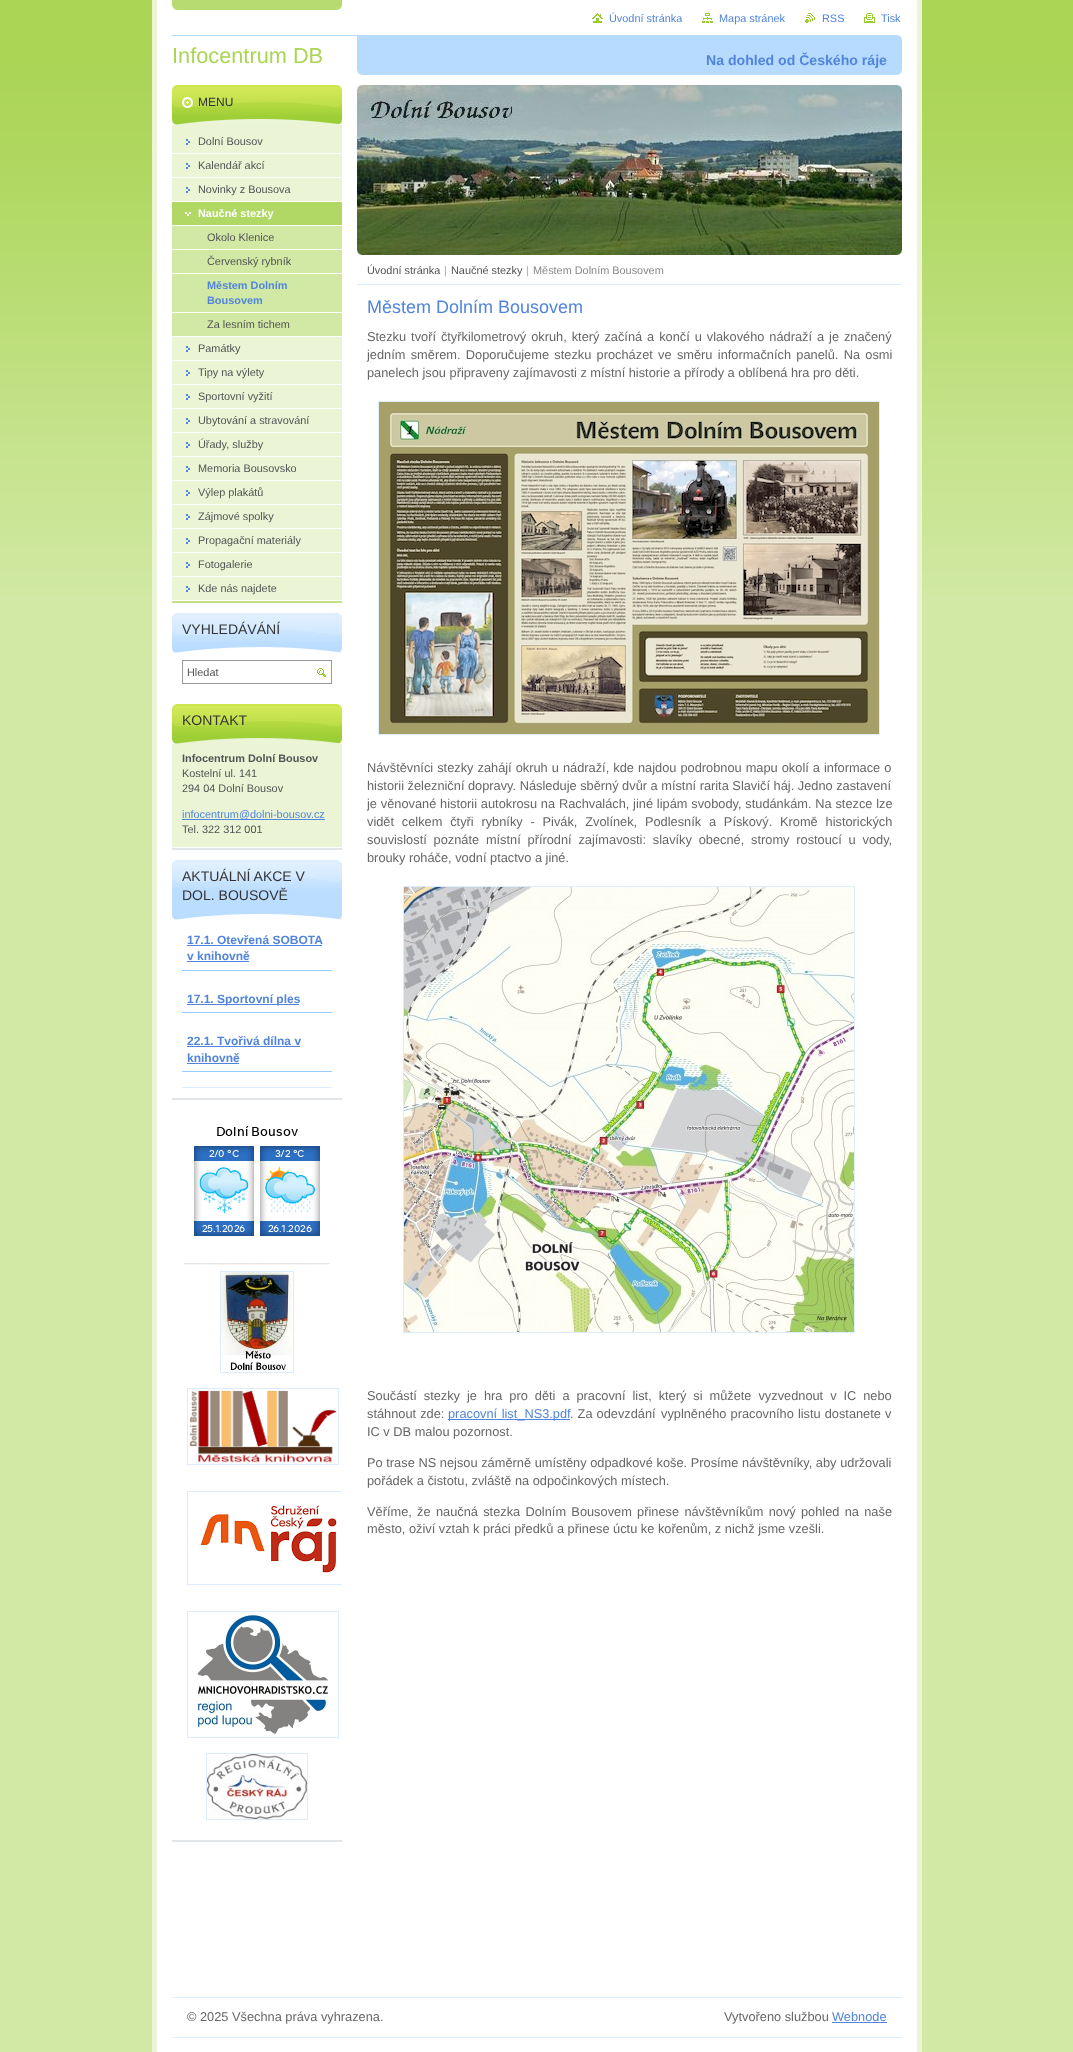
async function draw(canvas) {
  canvas.width = 1073
  canvas.height = 2052
  const ctx = canvas.getContext('2d')
  ctx.miterLimit = 4
  ctx.fontKerning = 'normal'
  async function loadImage(src) {
    const img = new Image()
    img.src = src
    await img.decode()
    return img
  }

  ctx.fillStyle = '#d2e9a5'
  ctx.fillRect(0, 0, 1073, 2052)
  ctx.drawImage(await loadImage('image0.png'), 0, 0, 1073, 594)
  ctx.fillStyle = '#fff'
  ctx.fillRect(157, 0, 760, 2052)
  ctx.drawImage(await loadImage('image1.png'), 172, 0, 170, 10)
  ctx.fillStyle = '#ebf5d6'
  ctx.fillRect(917, 0, 5, 2052)
  ctx.fillRect(152, 0, 5, 2052)
  ctx.drawImage(await loadImage('image2.png'), 592, 13, 11, 10)
  ctx.font = '10.9px Liberation Sans'
  ctx.fillStyle = '#5184db'
  ctx.fillText('Úvodní stránka', 609, 22)
  ctx.drawImage(await loadImage('image3.png'), 702, 13, 11, 10)
  ctx.fillText('Mapa stránek', 719, 22)
  ctx.drawImage(await loadImage('image4.png'), 805, 13, 10, 10)
  ctx.fillText('RSS', 822, 22)
  ctx.drawImage(await loadImage('image5.png'), 864, 13, 11, 10)
  ctx.fillText('Tisk', 881, 22)
  ctx.drawImage(await loadImage('image6.png'), 172, 35, 730, 6)
  ctx.font = '21.75px Liberation Sans'
  ctx.fillStyle = '#aad555'
  ctx.fillText('Infocentrum DB', 172, 63)
  ctx.fillStyle = '#b7dbff'
  ctx.fillRect(357, 41, 545, 29)
  ctx.drawImage(await loadImage('image7.png'), 357, 70, 545, 5)
  ctx.font = 'bold 14.1px Liberation Sans'
  ctx.fillStyle = '#5184db'
  ctx.fillText('Na dohled od Českého ráje', 706, 65)
  ctx.fillStyle = '#c2e084'
  ctx.fillRect(172, 601, 170, 2)
  ctx.fillStyle = '#ebf5d6'
  ctx.fillRect(172, 125, 170, 475)
  ctx.fillStyle = '#9fcf36'
  ctx.fillRect(172, 115, 170, 4)
  ctx.drawImage(await loadImage('image8.png'), 172, 85, 170, 30)
  ctx.drawImage(await loadImage('image9.png'), 172, 119, 170, 6)
  ctx.font = '12px Liberation Sans'
  ctx.fillStyle = '#333'
  ctx.fillText('MENU', 198, 106)
  ctx.drawImage(await loadImage('image10.png'), 186, 139, 4, 6)
  ctx.fillStyle = '#fff'
  ctx.fillRect(172, 153, 170, 1)
  ctx.font = '10.9px Liberation Sans'
  ctx.fillStyle = '#535353'
  ctx.fillText('Dolní Bousov', 198, 145)
  ctx.drawImage(await loadImage('image10.png'), 186, 163, 4, 6)
  ctx.fillStyle = '#fff'
  ctx.fillRect(172, 177, 170, 1)
  ctx.fillStyle = '#535353'
  ctx.fillText('Kalendář akcí', 198, 169)
  ctx.drawImage(await loadImage('image10.png'), 186, 187, 4, 6)
  ctx.fillStyle = '#fff'
  ctx.fillRect(172, 201, 170, 1)
  ctx.fillStyle = '#535353'
  ctx.fillText('Novinky z Bousova', 198, 193)
  ctx.fillStyle = '#b1d864'
  ctx.fillRect(172, 202, 170, 23)
  ctx.drawImage(await loadImage('image11.png'), 185, 212, 6, 4)
  ctx.fillStyle = '#fff'
  ctx.fillRect(172, 225, 170, 1)
  ctx.font = 'bold 10.9px Liberation Sans'
  ctx.fillText('Naučné stezky', 198, 217)
  ctx.fillStyle = '#d2e9a5'
  ctx.fillRect(172, 226, 170, 110)
  ctx.fillStyle = '#fff'
  ctx.fillRect(172, 249, 170, 1)
  ctx.font = '10.9px Liberation Sans'
  ctx.fillStyle = '#535353'
  ctx.fillText('Okolo Klenice', 207, 241)
  ctx.fillStyle = '#fff'
  ctx.fillRect(172, 273, 170, 1)
  ctx.fillStyle = '#535353'
  ctx.fillText('Červenský rybník', 207, 265)
  ctx.fillStyle = '#fff'
  ctx.fillRect(172, 312, 170, 1)
  ctx.font = 'bold 10.9px Liberation Sans'
  ctx.fillStyle = '#5184db'
  ctx.fillText('Městem Dolním', 207, 289)
  ctx.fillText('Bousovem', 207, 304)
  ctx.fillStyle = '#fff'
  ctx.fillRect(172, 336, 170, 1)
  ctx.font = '10.9px Liberation Sans'
  ctx.fillStyle = '#535353'
  ctx.fillText('Za lesním tichem', 207, 328)
  ctx.drawImage(await loadImage('image10.png'), 186, 346, 4, 6)
  ctx.fillStyle = '#fff'
  ctx.fillRect(172, 360, 170, 1)
  ctx.fillStyle = '#535353'
  ctx.fillText('Památky', 198, 352)
  ctx.drawImage(await loadImage('image10.png'), 186, 370, 4, 6)
  ctx.fillStyle = '#fff'
  ctx.fillRect(172, 384, 170, 1)
  ctx.fillStyle = '#535353'
  ctx.fillText('Tipy na výlety', 198, 376)
  ctx.drawImage(await loadImage('image10.png'), 186, 394, 4, 6)
  ctx.fillStyle = '#fff'
  ctx.fillRect(172, 408, 170, 1)
  ctx.fillStyle = '#535353'
  ctx.fillText('Sportovní vyžití', 198, 400)
  ctx.drawImage(await loadImage('image10.png'), 186, 418, 4, 6)
  ctx.fillStyle = '#fff'
  ctx.fillRect(172, 432, 170, 1)
  ctx.fillStyle = '#535353'
  ctx.fillText('Ubytování a stravování', 198, 424)
  ctx.drawImage(await loadImage('image10.png'), 186, 442, 4, 6)
  ctx.fillStyle = '#fff'
  ctx.fillRect(172, 456, 170, 1)
  ctx.fillStyle = '#535353'
  ctx.fillText('Úřady, služby', 198, 448)
  ctx.drawImage(await loadImage('image10.png'), 186, 466, 4, 6)
  ctx.fillStyle = '#fff'
  ctx.fillRect(172, 480, 170, 1)
  ctx.fillStyle = '#535353'
  ctx.fillText('Memoria Bousovsko', 198, 472)
  ctx.drawImage(await loadImage('image10.png'), 186, 490, 4, 6)
  ctx.fillStyle = '#fff'
  ctx.fillRect(172, 504, 170, 1)
  ctx.fillStyle = '#535353'
  ctx.fillText('Výlep plakátů', 198, 496)
  ctx.drawImage(await loadImage('image10.png'), 186, 514, 4, 6)
  ctx.fillStyle = '#fff'
  ctx.fillRect(172, 528, 170, 1)
  ctx.fillStyle = '#535353'
  ctx.fillText('Zájmové spolky', 198, 520)
  ctx.drawImage(await loadImage('image10.png'), 186, 538, 4, 6)
  ctx.fillStyle = '#fff'
  ctx.fillRect(172, 552, 170, 1)
  ctx.fillStyle = '#535353'
  ctx.fillText('Propagační materiály', 198, 544)
  ctx.drawImage(await loadImage('image10.png'), 186, 562, 4, 6)
  ctx.fillStyle = '#fff'
  ctx.fillRect(172, 576, 170, 1)
  ctx.fillStyle = '#535353'
  ctx.fillText('Fotogalerie', 198, 568)
  ctx.drawImage(await loadImage('image10.png'), 186, 586, 4, 6)
  ctx.fillText('Kde nás najdete', 198, 592)
  ctx.fillStyle = '#bdf'
  ctx.fillRect(172, 642, 170, 6)
  ctx.drawImage(await loadImage('image12.png'), 172, 613, 170, 29)
  ctx.drawImage(await loadImage('image13.png'), 172, 647, 170, 6)
  ctx.font = '14px Liberation Sans'
  ctx.fillStyle = '#333'
  ctx.fillText('VYHLEDÁVÁNÍ', 182, 634)
  ctx.strokeStyle = '#999'
  ctx.strokeRect(182.5, 660.5, 149, 23)
  ctx.font = '10.9px Liberation Sans'
  ctx.fillStyle = '#535353'
  ctx.fillText('Hledat', 187, 676)
  ctx.drawImage(await loadImage('image14.png'), 317, 668, 9, 9)
  ctx.fillStyle = '#e2e5e8'
  ctx.fillRect(172, 848, 170, 2)
  ctx.fillStyle = '#ebf5d6'
  ctx.fillRect(172, 744, 170, 103)
  ctx.fillStyle = '#9fcf36'
  ctx.fillRect(172, 734, 170, 5)
  ctx.drawImage(await loadImage('image15.png'), 172, 704, 170, 30)
  ctx.drawImage(await loadImage('image16.png'), 172, 738, 170, 6)
  ctx.font = '14px Liberation Sans'
  ctx.fillStyle = '#333'
  ctx.fillText('KONTAKT', 182, 725)
  ctx.font = 'bold 10.9px Liberation Sans'
  ctx.fillStyle = '#535353'
  ctx.fillText('Infocentrum Dolní Bousov', 182, 762)
  ctx.font = '10.9px Liberation Sans'
  ctx.fillText('Kostelní ul. 141', 182, 777)
  ctx.fillText('294 04 Dolní Bousov', 182, 792)
  ctx.fillStyle = '#5184db'
  ctx.fillRect(182, 819, 143, 1)
  ctx.fillText('infocentrum@dolni-bousov.cz', 182, 818)
  ctx.fillStyle = '#535353'
  ctx.fillText('Tel. 322 312 001', 182, 833)
  ctx.fillStyle = '#e2e5e8'
  ctx.fillRect(172, 1098, 170, 2)
  ctx.fillStyle = '#bdf'
  ctx.fillRect(172, 889, 170, 25)
  ctx.drawImage(await loadImage('image12.png'), 172, 860, 170, 29)
  ctx.drawImage(await loadImage('image17.png'), 172, 914, 170, 6)
  ctx.font = '14px Liberation Sans'
  ctx.fillStyle = '#333'
  ctx.fillText('AKTUÁLNÍ AKCE V', 182, 881)
  ctx.fillText('DOL. BOUSOVĚ', 182, 900)
  ctx.fillStyle = '#9cf'
  ctx.fillRect(182, 970, 150, 1)
  ctx.font = 'bold 12px Liberation Sans'
  ctx.fillStyle = '#5184db'
  ctx.fillText('17.1. Otevřená SOBOTA', 187, 944)
  ctx.fillRect(187, 945, 135, 1)
  ctx.fillText('v knihovně', 187, 960)
  ctx.fillRect(187, 961, 62, 1)
  ctx.fillStyle = '#9cf'
  ctx.fillRect(182, 1012, 150, 1)
  ctx.fillStyle = '#5184db'
  ctx.fillRect(187, 1004, 112, 1)
  ctx.fillText('17.1. Sportovní ples', 187, 1003)
  ctx.fillStyle = '#9cf'
  ctx.fillRect(182, 1071, 150, 1)
  ctx.fillStyle = '#5184db'
  ctx.fillText('22.1. Tvořivá dílna v', 187, 1045)
  ctx.fillRect(187, 1046, 113, 1)
  ctx.fillText('knihovně', 187, 1062)
  ctx.fillRect(187, 1063, 52, 1)
  ctx.fillStyle = '#dbedff'
  ctx.fillRect(182, 1087, 150, 1)
  ctx.fillStyle = '#e2e5e8'
  ctx.fillRect(172, 1840, 170, 2)
  ctx.drawImage(await loadImage('image18.png'), 194, 1126, 126, 110)
  ctx.font = '10.9px Liberation Sans'
  ctx.fillStyle = '#d3d3d3'
  ctx.fillText('________________________', 184, 1262)
  ctx.strokeStyle = '#dbedff'
  ctx.strokeRect(220.5, 1271.5, 73, 101)
  ctx.drawImage(await loadImage('image19.png'), 221, 1272, 72, 99)
  ctx.strokeRect(187.5, 1388.5, 151, 76)
  ctx.drawImage(await loadImage('image20.png'), 189, 1390, 148, 73)
  ctx.save()
  ctx.beginPath()
  ctx.rect(172, 1110, 170, 730)
  ctx.clip()
  ctx.strokeRect(187.5, 1491.5, 167, 93)
  ctx.restore()
  ctx.drawImage(await loadImage('image21.png'), 200, 1505, 137, 68)
  ctx.strokeRect(187.5, 1611.5, 151, 126)
  ctx.drawImage(await loadImage('image22.png'), 196, 1612, 136, 122)
  ctx.strokeRect(206.5, 1753.5, 101, 66)
  ctx.drawImage(await loadImage('image23.png'), 207, 1754, 100, 65)
  ctx.drawImage(await loadImage('image24.png'), 357, 85, 545, 170)
  ctx.drawImage(await loadImage('image25.png'), 357, 85, 545, 170)
  ctx.fillStyle = '#dbedff'
  ctx.fillRect(357, 284, 545, 1)
  ctx.fillStyle = '#535353'
  ctx.fillText('Úvodní stránka', 367, 274)
  ctx.fillStyle = '#9c3'
  ctx.fillText('|', 444, 274)
  ctx.fillStyle = '#535353'
  ctx.fillText('Naučné stezky', 451, 274)
  ctx.fillStyle = '#9c3'
  ctx.fillText('|', 526, 274)
  ctx.fillStyle = '#878787'
  ctx.fillText('Městem Dolním Bousovem', 533, 274)
  ctx.font = '18px Liberation Sans'
  ctx.fillStyle = '#5184db'
  ctx.fillText('Městem Dolním Bousovem', 367, 313)
  ctx.wordSpacing = '1.4px'
  ctx.font = '12.8px Liberation Sans'
  ctx.fillStyle = '#666'
  ctx.fillText('Stezku tvoří čtyřkilometrový okruh, který začíná a končí u vlakového nádraží a je značený', 367, 341)
  ctx.wordSpacing = '1.75px'
  ctx.fillText('jedním směrem. Doporučujeme stezku procházet ve směru informačních panelů. Na osmi', 367, 359)
  ctx.wordSpacing = '0px'
  ctx.fillText('panelech jsou připraveny zajímavosti z místní historie a přírody a oblíbená hra pro děti.', 367, 377)
  ctx.strokeRect(378.5, 401.5, 501, 333)
  ctx.drawImage(await loadImage('image26.png'), 379, 402, 500, 332)
  ctx.wordSpacing = '0.5px'
  ctx.fillText('Návštěvníci stezky zahájí okruh u nádraží, kde najdou podrobnou mapu okolí a informace o', 367, 772)
  ctx.wordSpacing = '0px'
  ctx.fillText('historii železniční dopravy. Následuje sběrný dvůr a místní rarita Slavičí háj. Jedno zastavení', 367, 790)
  ctx.wordSpacing = '0.25px'
  ctx.fillText('je věnované historii autokrosu na Rachvalách, jiné lipám svobody, studánkám. Na stezce lze', 367, 808)
  ctx.wordSpacing = '4.25px'
  ctx.fillText('vidět celkem čtyři rybníky - Pivák, Zvolínek, Podlesník a Pískový. Kromě historických', 367, 826)
  ctx.wordSpacing = '3.25px'
  ctx.fillText('souvislostí poznáte místní přírodní zajímavosti: slavíky obecné, stromy rostoucí u vody,', 367, 844)
  ctx.wordSpacing = '0px'
  ctx.fillText('brouky roháče, vodní ptactvo a jiné.', 367, 862)
  ctx.strokeRect(403.5, 886.5, 451, 446)
  ctx.drawImage(await loadImage('image27.png'), 404, 887, 450, 445)
  ctx.wordSpacing = '3.4px'
  ctx.fillText('Součástí stezky je hra pro děti a pracovní list, který si můžete vyzvednout v IC nebo', 367, 1400)
  ctx.wordSpacing = '0.5px'
  ctx.fillText('stáhnout zde:', 367, 1418)
  ctx.fillStyle = '#5184db'
  ctx.fillRect(448, 1419, 122, 1)
  ctx.wordSpacing = '1px'
  ctx.fillText('pracovní list_NS3.pdf', 448, 1418)
  ctx.wordSpacing = '0.5px'
  ctx.fillStyle = '#666'
  ctx.fillText('. Za odevzdání', 570, 1418)
  ctx.fillText('vyplněného pracovního listu dostanete v', 661, 1418)
  ctx.wordSpacing = '0px'
  ctx.fillText('IC v DB malou pozornost.', 367, 1436)
  ctx.wordSpacing = '0.1px'
  ctx.fillText('Po trase NS nejsou záměrně umístěny odpadkové koše. Prosíme návštěvníky, aby udržovali', 367, 1467)
  ctx.wordSpacing = '0px'
  ctx.fillText('pořádek a čistotu, zvláště na odpočinkových místech.', 367, 1485)
  ctx.wordSpacing = '1.75px'
  ctx.fillText('Věříme, že naučná stezka Dolním Bousovem přinese návštěvníkům nový pohled na naše', 367, 1516)
  ctx.wordSpacing = '0px'
  ctx.fillText('město, oživí vztah k práci předků a přinese úctu ke kořenům, z nichž jsme vzešli.', 367, 1533)
  ctx.fillStyle = '#dbedff'
  ctx.fillRect(172, 1997, 730, 1)
  ctx.fillRect(172, 2037, 730, 1)
  ctx.fillStyle = '#666'
  ctx.fillText('© 2025 Všechna práva vyhrazena.', 187, 2021)
  ctx.fillText('Vytvořeno službou', 724, 2021)
  ctx.fillStyle = '#5184db'
  ctx.fillText('Webnode', 832, 2021)
  ctx.fillRect(832, 2022, 55, 1)
}

draw(document.querySelector('canvas'))
